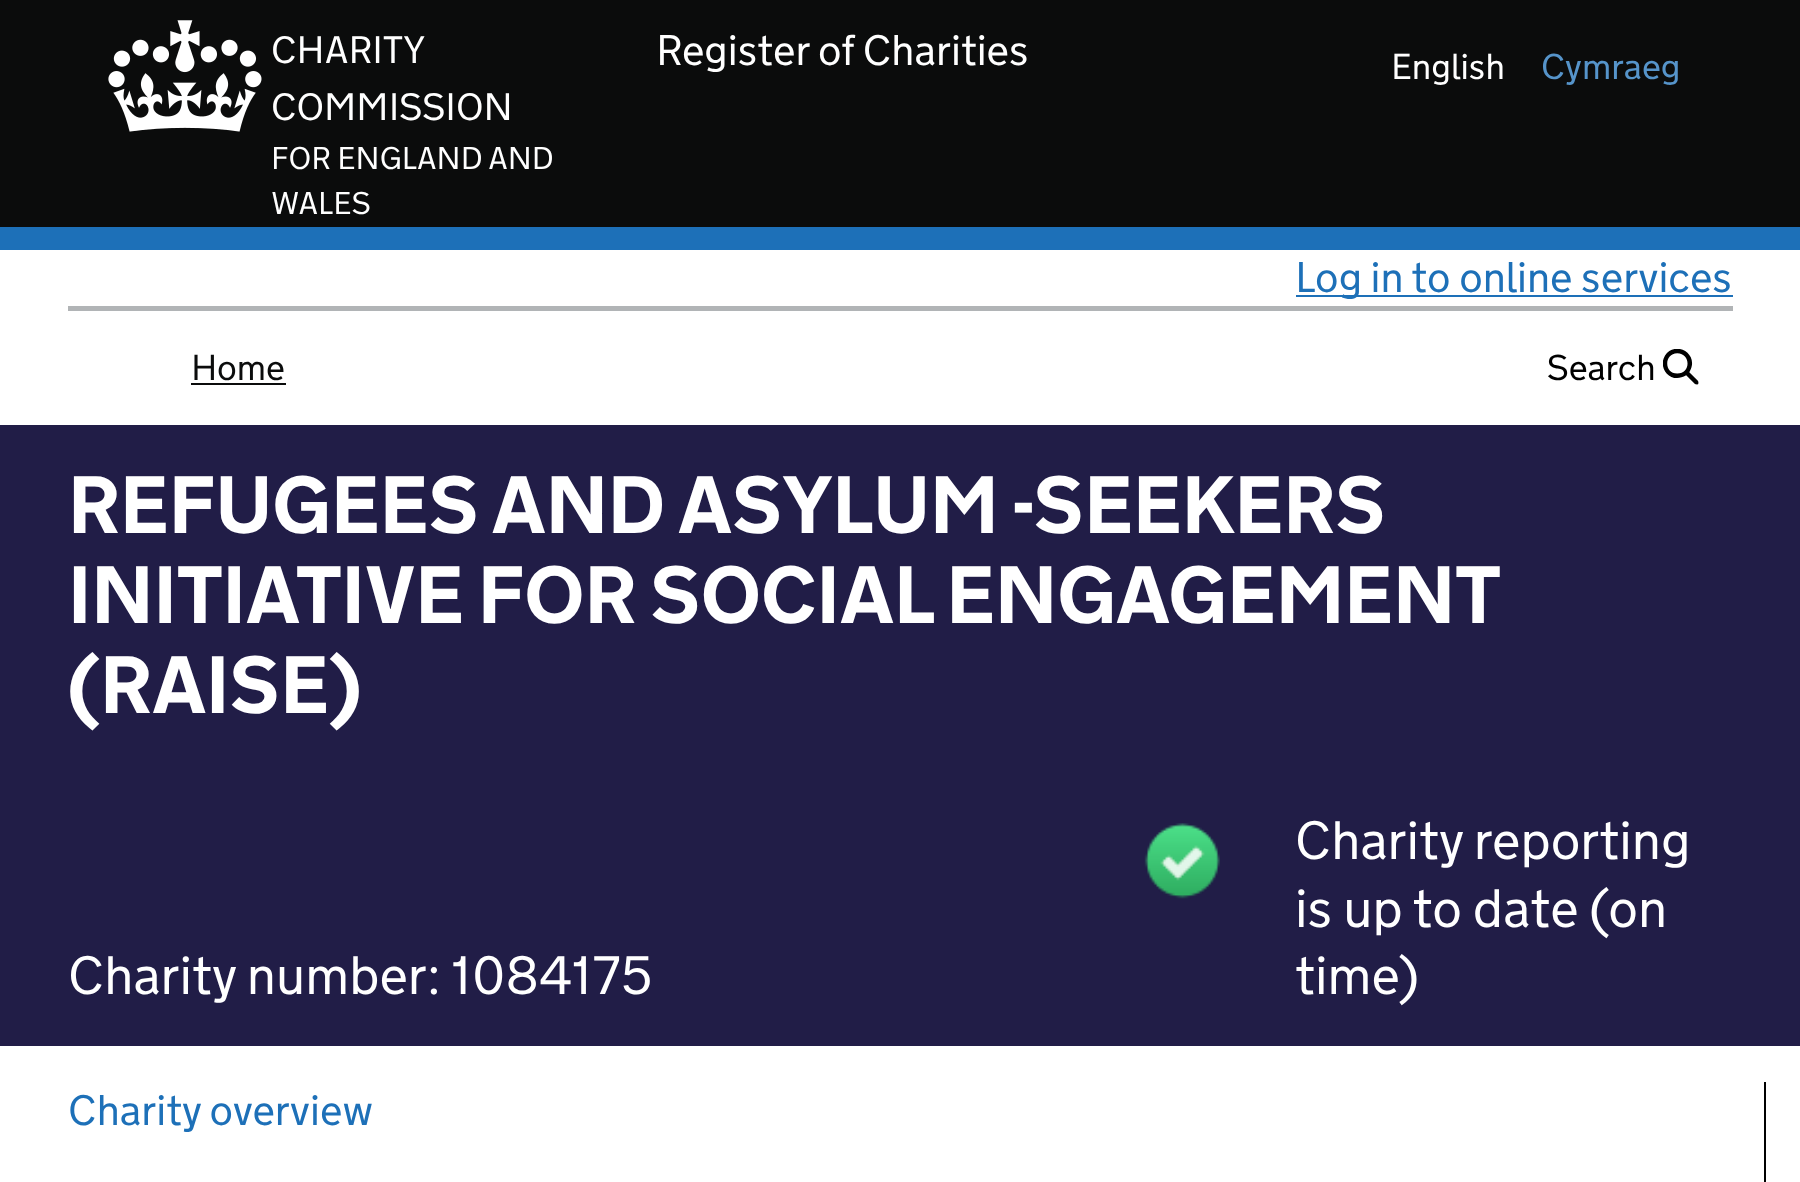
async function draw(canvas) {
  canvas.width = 1800
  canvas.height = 1182
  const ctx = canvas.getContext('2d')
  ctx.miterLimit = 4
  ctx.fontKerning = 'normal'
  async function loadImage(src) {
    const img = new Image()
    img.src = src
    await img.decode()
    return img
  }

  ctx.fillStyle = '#fff'
  ctx.fillRect(0, 0, 1800, 1182)
  ctx.fillStyle = '#0b0c0c'
  ctx.fillRect(0, 0, 1800, 227)
  ctx.fillStyle = '#1d70b8'
  ctx.fillRect(0, 227, 1800, 23)
  ctx.drawImage(await loadImage('image0.png'), 108, 20, 154, 112)
  ctx.font = '300 38.25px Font'
  ctx.fillStyle = '#fff'
  ctx.fillText('CHARITY', 271, 63)
  ctx.fillText('COMMISSION', 271, 120)
  ctx.font = '300 31.5px Font'
  ctx.fillText('FOR ENGLAND AND', 271, 169)
  ctx.fillText('WALES', 271, 214)
  ctx.font = '300 42.75px Font'
  ctx.fillText('Register of Charities', 656, 65)
  ctx.font = '300 36px Font'
  ctx.fillText('English', 1391, 79)
  ctx.fillStyle = '#5694ca'
  ctx.fillText('Cymraeg', 1541, 79)
  ctx.fillStyle = '#b1b4b6'
  ctx.fillRect(68, 306, 1665, 5)
  ctx.fillStyle = '#1d70b8'
  ctx.fillRect(1296, 295, 437, 2)
  ctx.font = '300 42.75px Font'
  ctx.fillText('Log in to online services', 1295, 292)
  ctx.font = '300 36px Font'
  ctx.fillStyle = '#0b0c0c'
  ctx.fillText('Home', 191, 380)
  ctx.fillRect(191, 383, 95, 2)
  ctx.fillStyle = '#000'
  ctx.fillText('Search', 1547, 380)
  ctx.drawImage(await loadImage('image1.png'), 1663, 349, 36, 36)
  ctx.fillStyle = '#211d47'
  ctx.fillRect(0, 425, 1800, 621)
  ctx.font = 'bold 81px Font'
  ctx.fillStyle = '#fff'
  ctx.fillText('REFUGEES AND ASYLUM -SEEKERS', 68, 533)
  ctx.wordSpacing = '-1px'
  ctx.fillText('INITIATIVE FOR SOCIAL ENGAGEMENT', 68, 623)
  ctx.wordSpacing = '0px'
  ctx.fillText('(RAISE)', 68, 713)
  ctx.font = '300 54px Font'
  ctx.fillText('Charity number: 1084175', 68, 994)
  ctx.drawImage(await loadImage('image2.png'), 1144, 823, 76, 76)
  ctx.fillText('Charity reporting', 1295, 859)
  ctx.fillText('is up to date (on', 1295, 927)
  ctx.fillText('time)', 1295, 994)
  ctx.fillStyle = '#000'
  ctx.fillRect(1764, 1082, 2, 100)
  ctx.font = '300 42.75px Font'
  ctx.fillStyle = '#1d70b8'
  ctx.fillText('Charity overview', 68, 1125)
}

draw(document.querySelector('canvas'))
